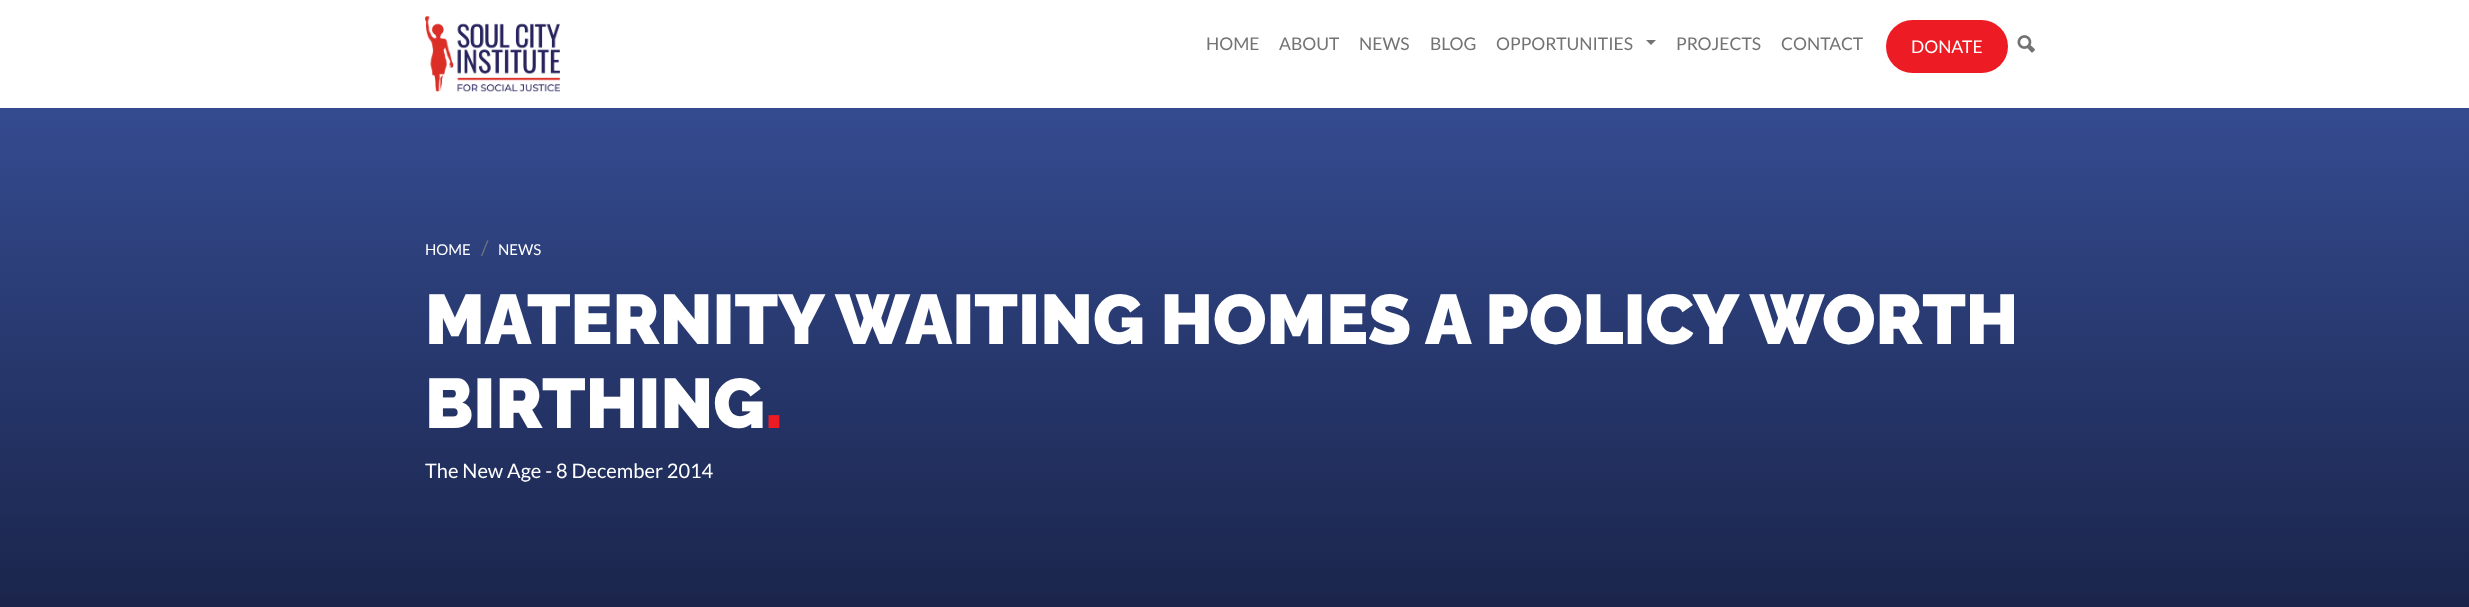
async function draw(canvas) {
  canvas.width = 2469
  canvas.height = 607
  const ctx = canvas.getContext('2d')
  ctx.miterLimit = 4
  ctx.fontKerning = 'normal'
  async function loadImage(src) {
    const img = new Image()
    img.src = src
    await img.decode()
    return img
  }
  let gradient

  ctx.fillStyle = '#fff'
  ctx.fillRect(0, 0, 2469, 607)
  ctx.drawImage(await loadImage('image0.png'), 425, 16, 135, 76)
  ctx.font = '17.5px Lato'
  ctx.fillStyle = '#737373'
  ctx.fillText('HOME', 1206, 50)
  ctx.fillText('ABOUT', 1279, 50)
  ctx.fillText('NEWS', 1359, 50)
  ctx.fillText('BLOG', 1430, 50)
  ctx.fillText('OPPORTUNITIES', 1496, 50)
  ctx.beginPath()
  ctx.moveTo(1646, 40)
  ctx.lineTo(1656, 40)
  ctx.lineTo(1651, 45)
  ctx.closePath()
  ctx.fill()
  ctx.fillText('PROJECTS', 1676, 50)
  ctx.fillText('CONTACT', 1781, 50)
  ctx.fillStyle = '#ed1c24'
  ctx.beginPath()
  ctx.roundRect(1886, 20, 122, 53, 26.5)
  ctx.fill()
  ctx.fillStyle = '#fff'
  ctx.fillText('DONATE', 1911, 53)
  ctx.drawImage(await loadImage('image1.png'), 2017, 35, 18, 18)
  gradient = ctx.createLinearGradient(1235, 107, 1235, 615)
  gradient.addColorStop(0, '#344b90')
  gradient.addColorStop(1, '#1a244a')
  ctx.fillStyle = gradient
  ctx.fillRect(0, 108, 2469, 499)
  ctx.font = '15px Lato'
  ctx.fillStyle = '#fff'
  ctx.fillText('HOME', 425, 255)
  ctx.font = '20px Lato'
  ctx.fillStyle = '#6c757d'
  ctx.fillText('/', 481, 255)
  ctx.font = '15px Lato'
  ctx.fillStyle = '#fff'
  ctx.fillText('NEWS', 498, 255)
  ctx.font = '900 70px Raleway'
  ctx.fillText('MATERNITY WAITING HOMES A POLICY WORTH', 425, 344)
  ctx.fillText('BIRTHING', 425, 428)
  ctx.fillStyle = '#ed1c24'
  ctx.fillText('.', 765, 428)
  ctx.font = '20px Lato'
  ctx.fillStyle = '#fff'
  ctx.fillText('The New Age - 8 December 2014', 425, 478)
}

draw(document.querySelector('canvas'))
